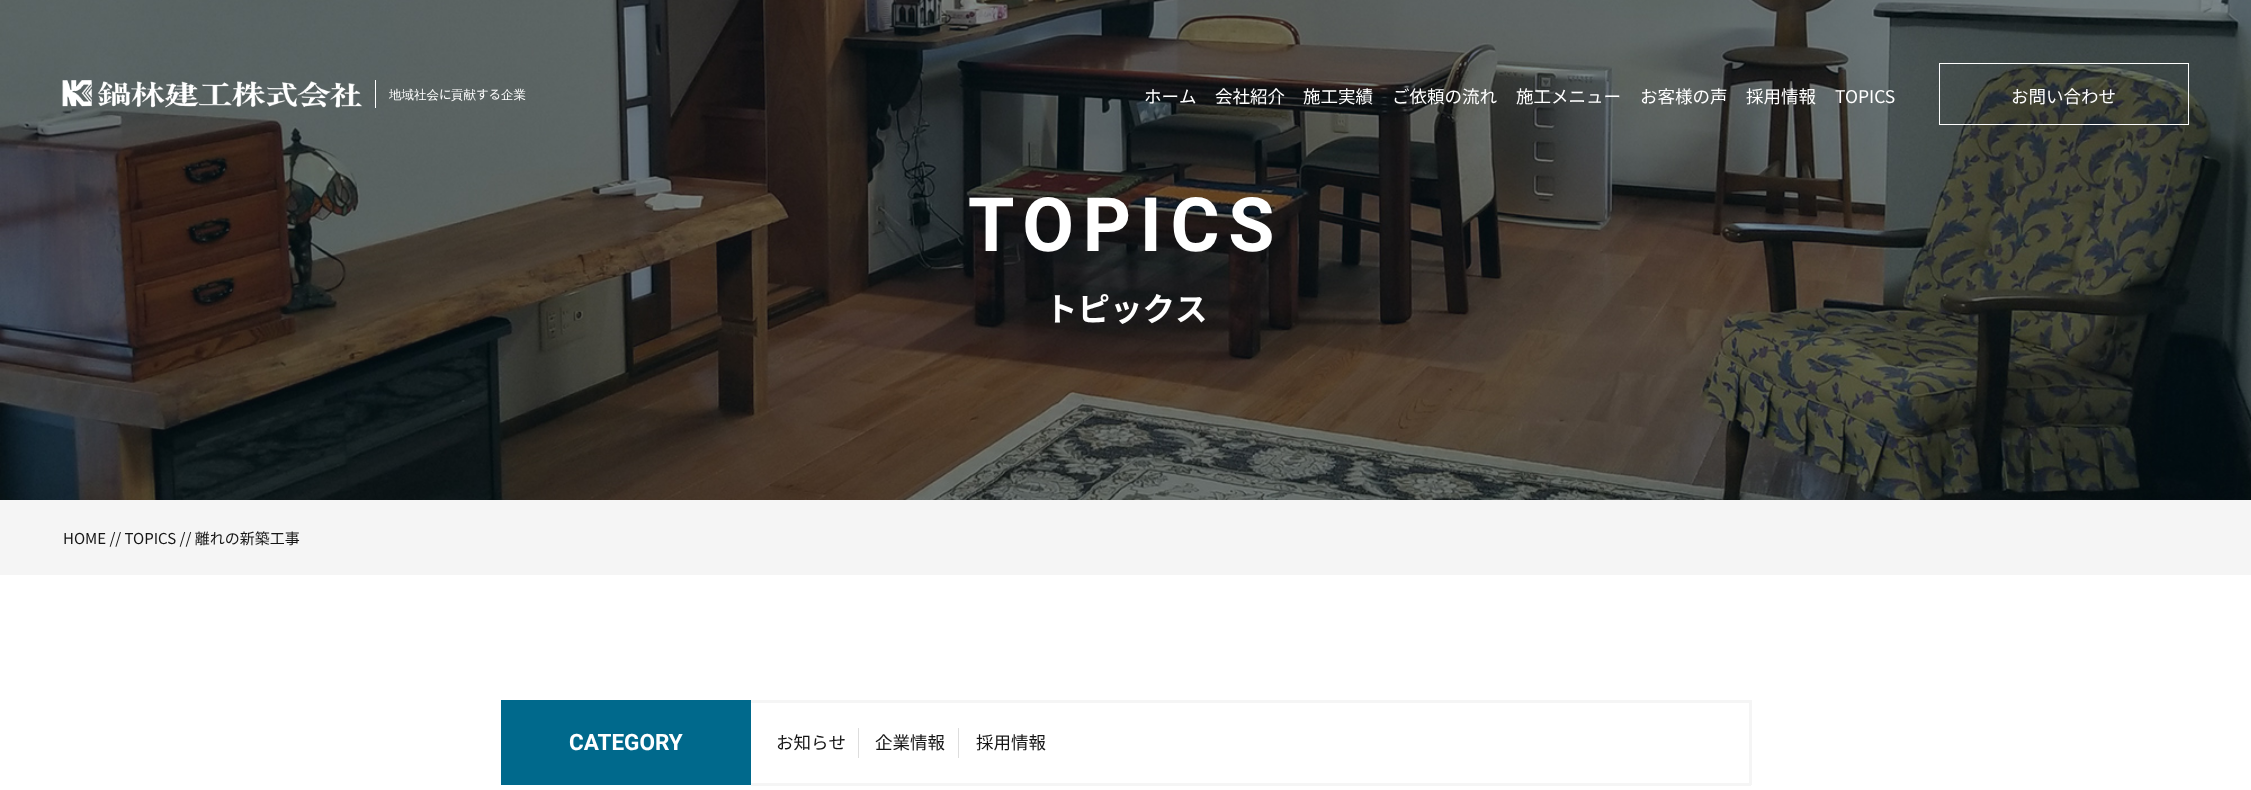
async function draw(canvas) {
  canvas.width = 2251
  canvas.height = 790
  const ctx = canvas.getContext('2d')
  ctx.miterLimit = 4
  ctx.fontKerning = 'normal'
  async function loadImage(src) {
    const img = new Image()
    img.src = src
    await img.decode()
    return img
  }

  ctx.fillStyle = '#fff'
  ctx.fillRect(0, 0, 2251, 790)
  ctx.drawImage(await loadImage('image0.png'), 0, 0, 2251, 500)
  ctx.drawImage(await loadImage('image1.png'), 62, 80, 300, 28)
  ctx.fillRect(375, 80, 1, 28)
  ctx.font = '500 12.5px WenQuanYi Zen Hei'
  ctx.fillText('地域社会', 389, 99)
  ctx.font = '12.5px Noto Sans JP'
  ctx.fillText('に', 439, 99)
  ctx.font = '500 12.5px WenQuanYi Zen Hei'
  ctx.fillText('貢献', 451, 99)
  ctx.font = '12.5px Noto Sans JP'
  ctx.fillText('する', 476, 99)
  ctx.font = '500 12.5px WenQuanYi Zen Hei'
  ctx.fillText('企業', 501, 99)
  ctx.font = '17.5px Noto Sans JP'
  ctx.fillText('ホーム', 1144, 103)
  ctx.fillText('会社紹介', 1215, 103)
  ctx.fillText('施工実績', 1303, 103)
  ctx.fillText('ご依頼の流れ', 1392, 103)
  ctx.fillText('施工メニュー', 1516, 103)
  ctx.fillText('お客様の声', 1640, 103)
  ctx.fillText('採用情報', 1746, 103)
  ctx.fillText('TOPICS', 1835, 103)
  ctx.strokeStyle = '#fff'
  ctx.strokeRect(1939.5, 63.5, 249, 61)
  ctx.fillText('お問い合わせ', 2011, 103)
  ctx.letterSpacing = '8.75px'
  ctx.font = 'bold 75px Roboto'
  ctx.fillText('TOPICS', 968, 251)
  ctx.letterSpacing = '0px'
  ctx.font = 'bold 32.5px Noto Sans JP'
  ctx.fillText('トピックス', 1045, 321)
  ctx.fillStyle = '#f5f5f5'
  ctx.fillRect(0, 500, 2251, 75)
  ctx.font = '15px Noto Sans JP'
  ctx.fillStyle = '#151515'
  ctx.fillText('HOME // TOPICS // 離れの新築工事', 63, 544)
  ctx.fillStyle = '#00698c'
  ctx.fillRect(501, 700, 250, 85)
  ctx.font = 'bold 22.5px Roboto'
  ctx.fillStyle = '#fff'
  ctx.fillText('CATEGORY', 569, 750)
  ctx.fillStyle = '#f5f5f5'
  ctx.fillRect(751, 700, 1000, 3)
  ctx.fillRect(1749, 700, 3, 85)
  ctx.fillRect(751, 783, 1000, 3)
  ctx.fillStyle = '#ddd'
  ctx.fillRect(858, 728, 1, 30)
  ctx.font = '17.5px Noto Sans JP'
  ctx.fillStyle = '#151515'
  ctx.fillText('お知らせ', 776, 749)
  ctx.fillStyle = '#ddd'
  ctx.fillRect(958, 728, 1, 30)
  ctx.fillStyle = '#151515'
  ctx.fillText('企業情報', 875, 749)
  ctx.fillText('採用情報', 976, 749)
}

draw(document.querySelector('canvas'))
